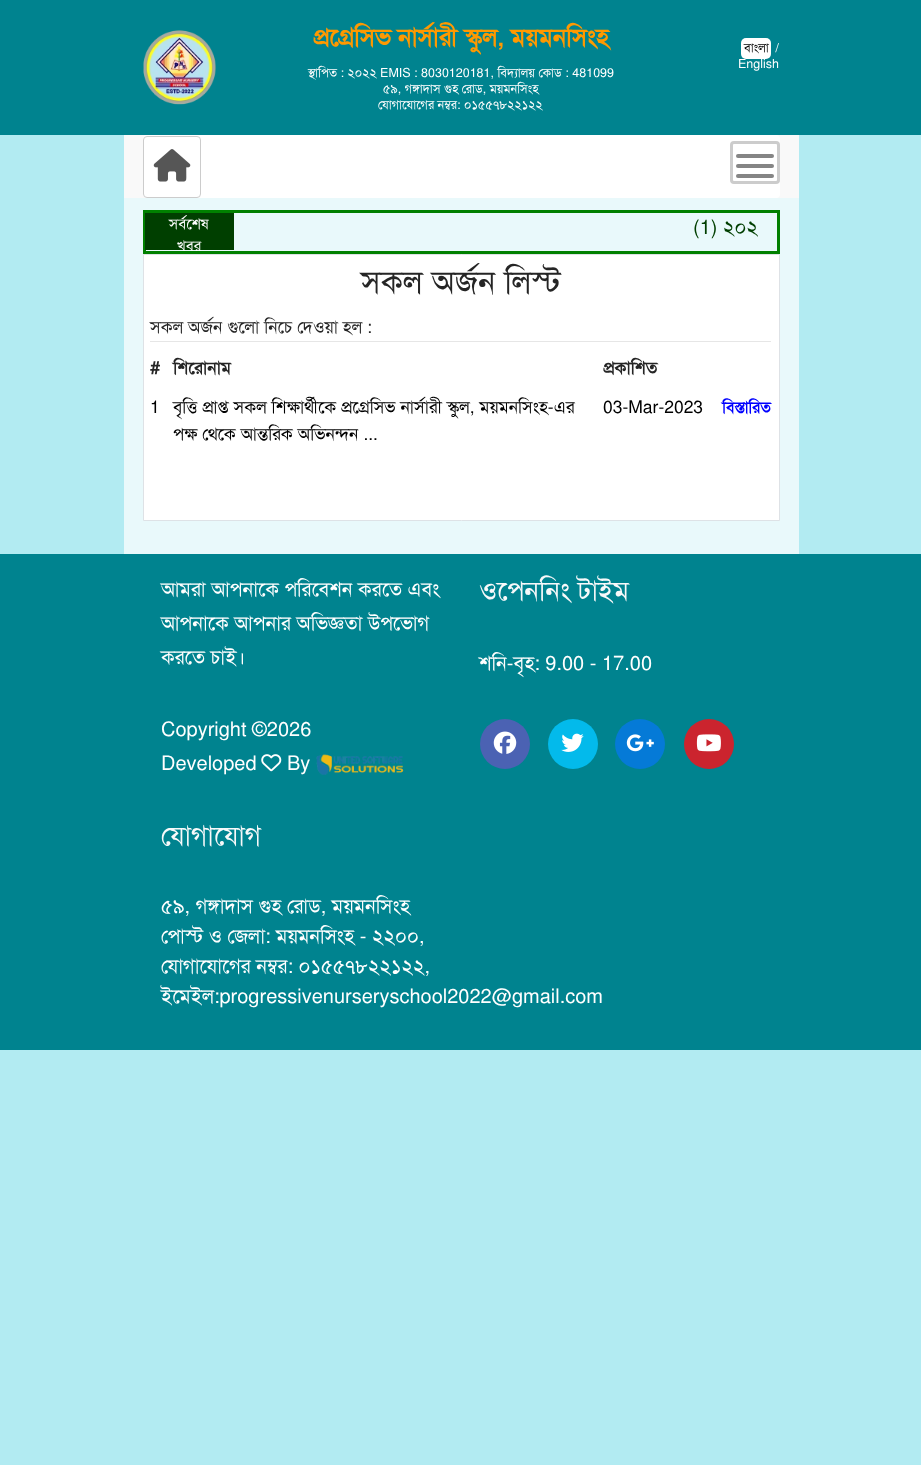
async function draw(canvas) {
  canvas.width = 921
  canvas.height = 1465
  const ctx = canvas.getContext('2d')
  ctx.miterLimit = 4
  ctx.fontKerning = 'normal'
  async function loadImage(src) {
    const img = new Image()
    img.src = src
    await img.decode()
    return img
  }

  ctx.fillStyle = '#b2ebf2'
  ctx.fillRect(0, 0, 921, 1465)
  ctx.fillStyle = '#00838f'
  ctx.fillRect(0, 0, 921, 135)
  ctx.drawImage(await loadImage('image0.png'), 143, 30, 74, 75)
  ctx.font = 'bold 25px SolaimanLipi'
  ctx.fillStyle = '#f90'
  ctx.fillText('প্রগ্রেসিভ নার্সারী স্কুল, ময়মনসিংহ', 313, 46)
  ctx.font = '12.5px SolaimanLipi'
  ctx.fillStyle = '#fff'
  ctx.fillText('স্থাপিত : ২০২২ EMIS : 8030120181, বিদ্যালয় কোড : 481099', 308, 77)
  ctx.fillText('৫৯, গঙ্গাদাস গুহ রোড, ময়মনসিংহ', 383, 93)
  ctx.fillText('যোগাযোগের নম্বর: ০১৫৫৭৮২২১২২', 378, 109)
  ctx.beginPath()
  ctx.roundRect(741, 38, 30, 21, 5)
  ctx.fill()
  ctx.fillStyle = '#000'
  ctx.fillText('বাংলা', 744, 52)
  ctx.fillStyle = '#fff'
  ctx.fillText('/', 775, 52)
  ctx.fillText('English', 738, 68)
  ctx.fillStyle = '#f9f9f9'
  ctx.fillRect(124, 135, 675, 63)
  ctx.fillStyle = '#fff'
  ctx.beginPath()
  ctx.roundRect(143, 135, 637, 63, 4)
  ctx.fill()
  ctx.beginPath()
  ctx.roundRect(143.5, 136.5, 57, 61, 3.5)
  ctx.strokeStyle = '#ccc'
  ctx.stroke()
  ctx.drawImage(await loadImage('image1.png'), 153, 149, 38, 33)
  ctx.beginPath()
  ctx.roundRect(731.5, 142.5, 47, 40, 2.5)
  ctx.lineWidth = 3
  ctx.stroke()
  ctx.fillStyle = '#858585'
  ctx.beginPath()
  ctx.roundRect(736, 154, 38, 4, 2)
  ctx.fill()
  ctx.beginPath()
  ctx.roundRect(736, 164, 38, 4, 2)
  ctx.fill()
  ctx.beginPath()
  ctx.roundRect(736, 174, 38, 4, 2)
  ctx.fill()
  ctx.fillStyle = '#e9f9fb'
  ctx.fillRect(124, 198, 675, 356)
  ctx.strokeStyle = '#008000'
  ctx.strokeRect(144.5, 211.5, 634, 41)
  ctx.fillStyle = '#003f00'
  ctx.fillRect(145, 213, 89, 37)
  ctx.font = '15px SolaimanLipi'
  ctx.fillStyle = '#fff'
  ctx.fillText('সর্বশেষ', 169, 229)
  ctx.save()
  ctx.beginPath()
  ctx.rect(145, 213, 633, 38)
  ctx.clip()
  ctx.fillText('খবর', 177, 251)
  ctx.restore()
  ctx.font = '20px SolaimanLipi'
  ctx.fillStyle = '#003f00'
  ctx.fillText('(1) ২০২', 693, 234)
  ctx.fillStyle = '#fff'
  ctx.beginPath()
  ctx.rect(143.5, 254.5, 636, 266)
  ctx.fill()
  ctx.strokeStyle = '#dee2e6'
  ctx.lineWidth = 1
  ctx.stroke()
  ctx.font = '32.5px SolaimanLipi'
  ctx.fillStyle = '#252525'
  ctx.fillText('সকল অর্জন লিস্ট', 361, 293)
  ctx.font = '17.5px SolaimanLipi'
  ctx.fillText('সকল অর্জন গুলো নিচে দেওয়া হল :', 150, 333)
  ctx.fillStyle = '#e6e6e6'
  ctx.fillRect(150, 341, 621, 1)
  ctx.font = 'bold 17.5px SolaimanLipi'
  ctx.fillStyle = '#252525'
  ctx.fillText('#', 150, 374)
  ctx.fillText('শিরোনাম', 173, 374)
  ctx.fillText('প্রকাশিত', 603, 374)
  ctx.font = '17.5px SolaimanLipi'
  ctx.fillStyle = '#000'
  ctx.fillText('1', 150, 413)
  ctx.fillText('বৃত্তি প্রাপ্ত সকল শিক্ষার্থীকে প্রগ্রেসিভ নার্সারী স্কুল, ময়মনসিংহ-এর', 173, 413)
  ctx.fillText('পক্ষ থেকে আন্তরিক অভিনন্দন ...', 173, 440)
  ctx.fillText('03-Mar-2023', 603, 413)
  ctx.font = 'bold 16px SolaimanLipi'
  ctx.fillStyle = '#00f'
  ctx.fillText('বিস্তারিত', 722, 413)
  ctx.fillStyle = '#00838f'
  ctx.fillRect(0, 554, 921, 496)
  ctx.font = '20px SolaimanLipi'
  ctx.fillStyle = '#fff'
  ctx.fillText('আমরা আপনাকে পরিবেশন করতে এবং', 161, 596)
  ctx.fillText('আপনাকে আপনার অভিজ্ঞতা উপভোগ', 161, 630)
  ctx.fillText('করতে চাই।', 161, 664)
  ctx.fillText('Copyright ©2026', 161, 736)
  ctx.fillText('Developed', 161, 770)
  ctx.drawImage(await loadImage('image2.png'), 261, 754, 21, 18)
  ctx.fillText('By', 287, 770)
  ctx.drawImage(await loadImage('image3.png'), 316, 754, 88, 21)
  ctx.font = '27.5px SolaimanLipi'
  ctx.fillStyle = '#f8f9fa'
  ctx.fillText('ওপেননিং টাইম', 479, 600)
  ctx.font = '20px SolaimanLipi'
  ctx.fillStyle = '#fff'
  ctx.fillText('শনি-বৃহ: 9.00 - 17.00', 479, 670)
  ctx.fillStyle = '#4b62b3'
  ctx.beginPath()
  ctx.arc(505, 744, 25, 0, 2 * Math.PI)
  ctx.fill()
  ctx.drawImage(await loadImage('image4.png'), 493, 731, 24, 23)
  ctx.fillStyle = '#03baeb'
  ctx.beginPath()
  ctx.arc(573, 744, 25, 0, 2 * Math.PI)
  ctx.fill()
  ctx.drawImage(await loadImage('image5.png'), 561, 733, 23, 19)
  ctx.fillStyle = '#057ad7'
  ctx.beginPath()
  ctx.arc(640, 744, 25, 0, 2 * Math.PI)
  ctx.fill()
  ctx.drawImage(await loadImage('image6.png'), 626, 734, 28, 18)
  ctx.fillStyle = '#cb242e'
  ctx.beginPath()
  ctx.arc(709, 744, 25, 0, 2 * Math.PI)
  ctx.fill()
  ctx.drawImage(await loadImage('image7.png'), 696, 734, 25, 18)
  ctx.font = '27.5px SolaimanLipi'
  ctx.fillStyle = '#f8f9fa'
  ctx.fillText('যোগাযোগ', 161, 845)
  ctx.font = '20px SolaimanLipi'
  ctx.fillStyle = '#fff'
  ctx.fillText('৫৯, গঙ্গাদাস গুহ রোড, ময়মনসিংহ', 161, 913)
  ctx.fillText('পোস্ট ও জেলা: ময়মনসিংহ - ২২০০,', 161, 943)
  ctx.fillText('যোগাযোগের নম্বর: ০১৫৫৭৮২২১২২,', 161, 973)
  ctx.fillText('ইমেইল:progressivenurseryschool2022@gmail.com', 161, 1003)
}

draw(document.querySelector('canvas'))
